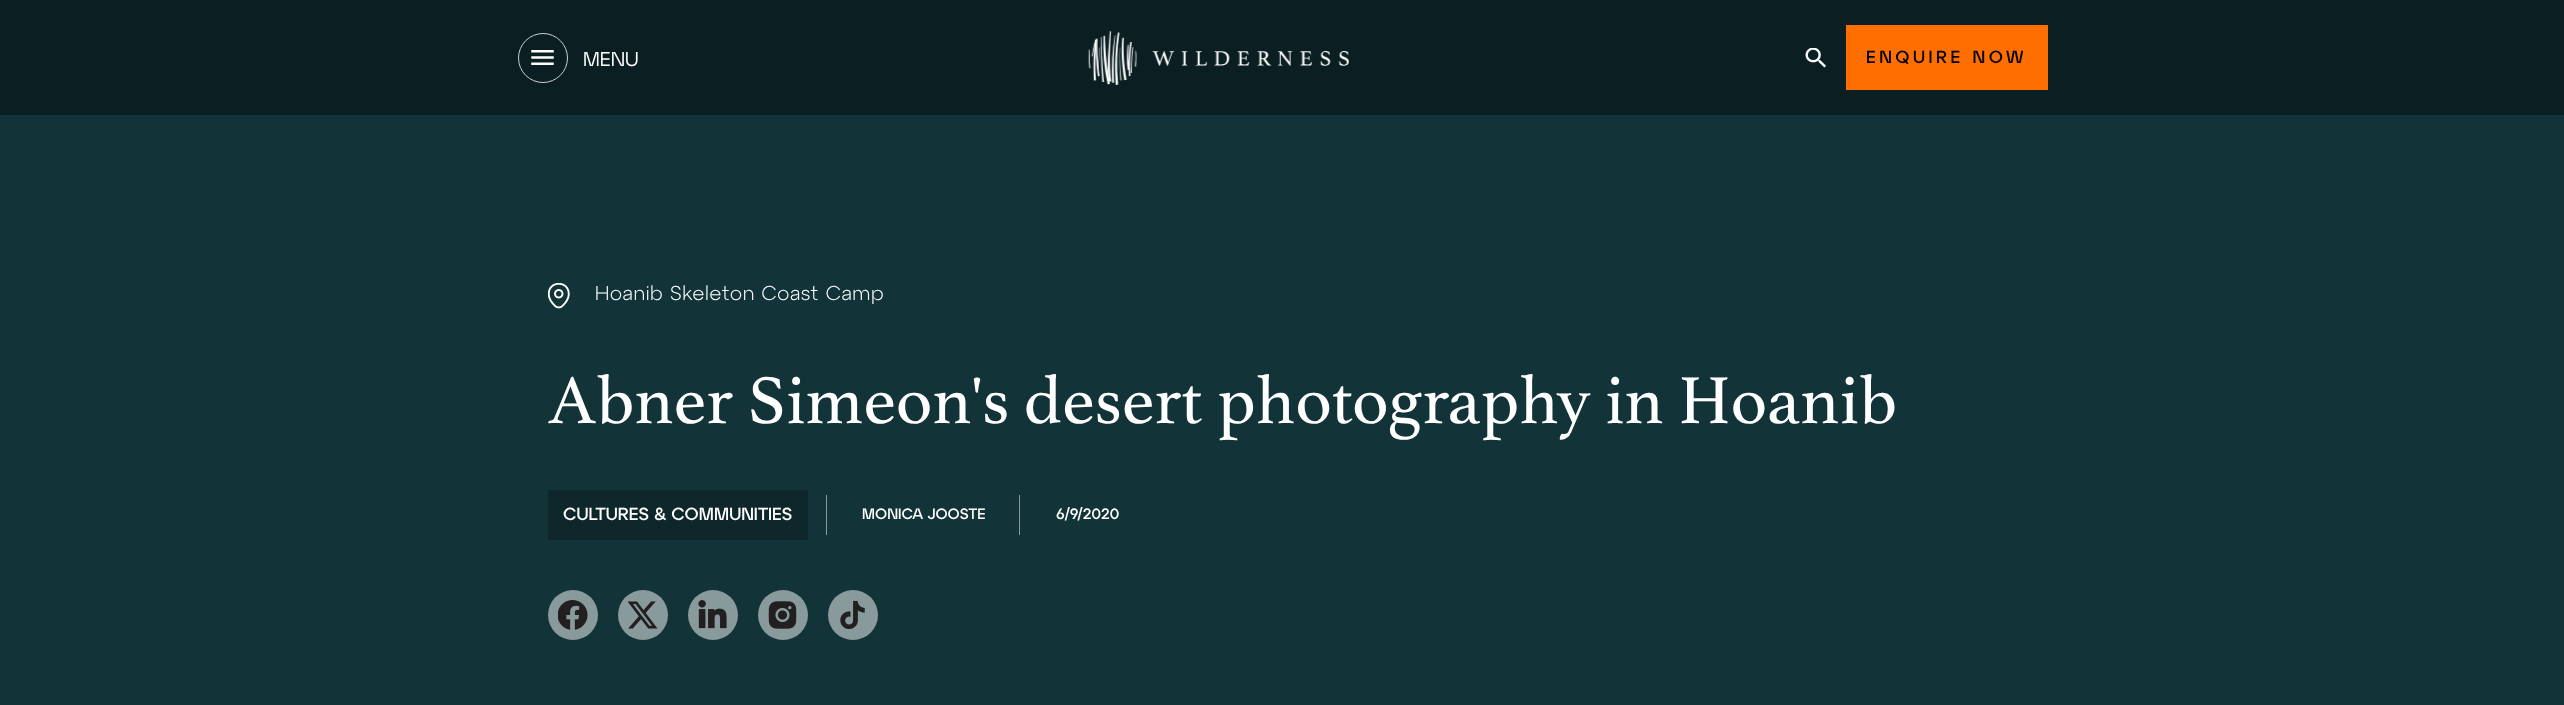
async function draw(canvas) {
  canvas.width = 2564
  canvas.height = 705
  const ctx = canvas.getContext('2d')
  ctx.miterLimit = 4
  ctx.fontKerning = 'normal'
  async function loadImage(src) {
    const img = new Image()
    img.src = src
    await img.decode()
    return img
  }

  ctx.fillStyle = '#123438'
  ctx.fillRect(0, 0, 2564, 705)
  ctx.fillStyle = '#0b1f22'
  ctx.fillRect(0, 0, 2564, 115)
  ctx.beginPath()
  ctx.arc(543, 58, 24.5, 0, 2 * Math.PI)
  ctx.strokeStyle = '#cecece'
  ctx.stroke()
  ctx.drawImage(await loadImage('image0.png'), 531, 50, 23, 15)
  ctx.font = '20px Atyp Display'
  ctx.fillStyle = '#fff'
  ctx.fillText('MENU', 583, 66)
  ctx.drawImage(await loadImage('image1.png'), 1088, 31, 261, 54)
  ctx.drawImage(await loadImage('image2.png'), 1805, 48, 21, 20)
  ctx.fillStyle = '#ff6e00'
  ctx.fillRect(1846, 25, 202, 65)
  ctx.letterSpacing = '3.5px'
  ctx.font = '500 17.5px Atyp Display'
  ctx.fillStyle = '#000'
  ctx.fillText('ENQUIRE NOW', 1866, 63)
  ctx.drawImage(await loadImage('image3.png'), 548, 283, 22, 26)
  ctx.letterSpacing = '0.5px'
  ctx.font = '300 20px Atyp Display'
  ctx.fillStyle = '#fff'
  ctx.fillText('Hoanib Skeleton Coast Camp', 595, 300)
  ctx.letterSpacing = '0px'
  ctx.font = '70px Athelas'
  ctx.fillText('Abner Simeon\'s desert photography in Hoanib', 548, 423)
  ctx.fillStyle = '#0e272a'
  ctx.fillRect(548, 490, 260, 50)
  ctx.font = '500 17.5px Atyp Display'
  ctx.fillStyle = '#fff'
  ctx.fillText('CULTURES & COMMUNITIES', 563, 520)
  ctx.fillStyle = '#899a9c'
  ctx.fillRect(826, 495, 1, 40)
  ctx.font = '500 15px Atyp Display'
  ctx.fillStyle = '#fff'
  ctx.fillText('MONICA JOOSTE', 862, 519)
  ctx.fillStyle = '#899a9c'
  ctx.fillRect(1019, 495, 1, 40)
  ctx.fillStyle = '#fff'
  ctx.fillText('6/9/2020', 1056, 519)
  ctx.fillStyle = '#899a9c'
  ctx.beginPath()
  ctx.arc(573, 615, 25, 0, 2 * Math.PI)
  ctx.fill()
  ctx.drawImage(await loadImage('image4.png'), 558, 600, 30, 30)
  ctx.beginPath()
  ctx.arc(643, 615, 25, 0, 2 * Math.PI)
  ctx.fill()
  ctx.drawImage(await loadImage('image5.png'), 628, 601, 30, 28)
  ctx.beginPath()
  ctx.arc(713, 615, 25, 0, 2 * Math.PI)
  ctx.fill()
  ctx.drawImage(await loadImage('image6.png'), 698, 600, 29, 29)
  ctx.beginPath()
  ctx.arc(783, 615, 25, 0, 2 * Math.PI)
  ctx.fill()
  ctx.drawImage(await loadImage('image7.png'), 768, 601, 29, 28)
  ctx.beginPath()
  ctx.arc(853, 615, 25, 0, 2 * Math.PI)
  ctx.fill()
  ctx.drawImage(await loadImage('image8.png'), 840, 600, 25, 29)
}

draw(document.querySelector('canvas'))
